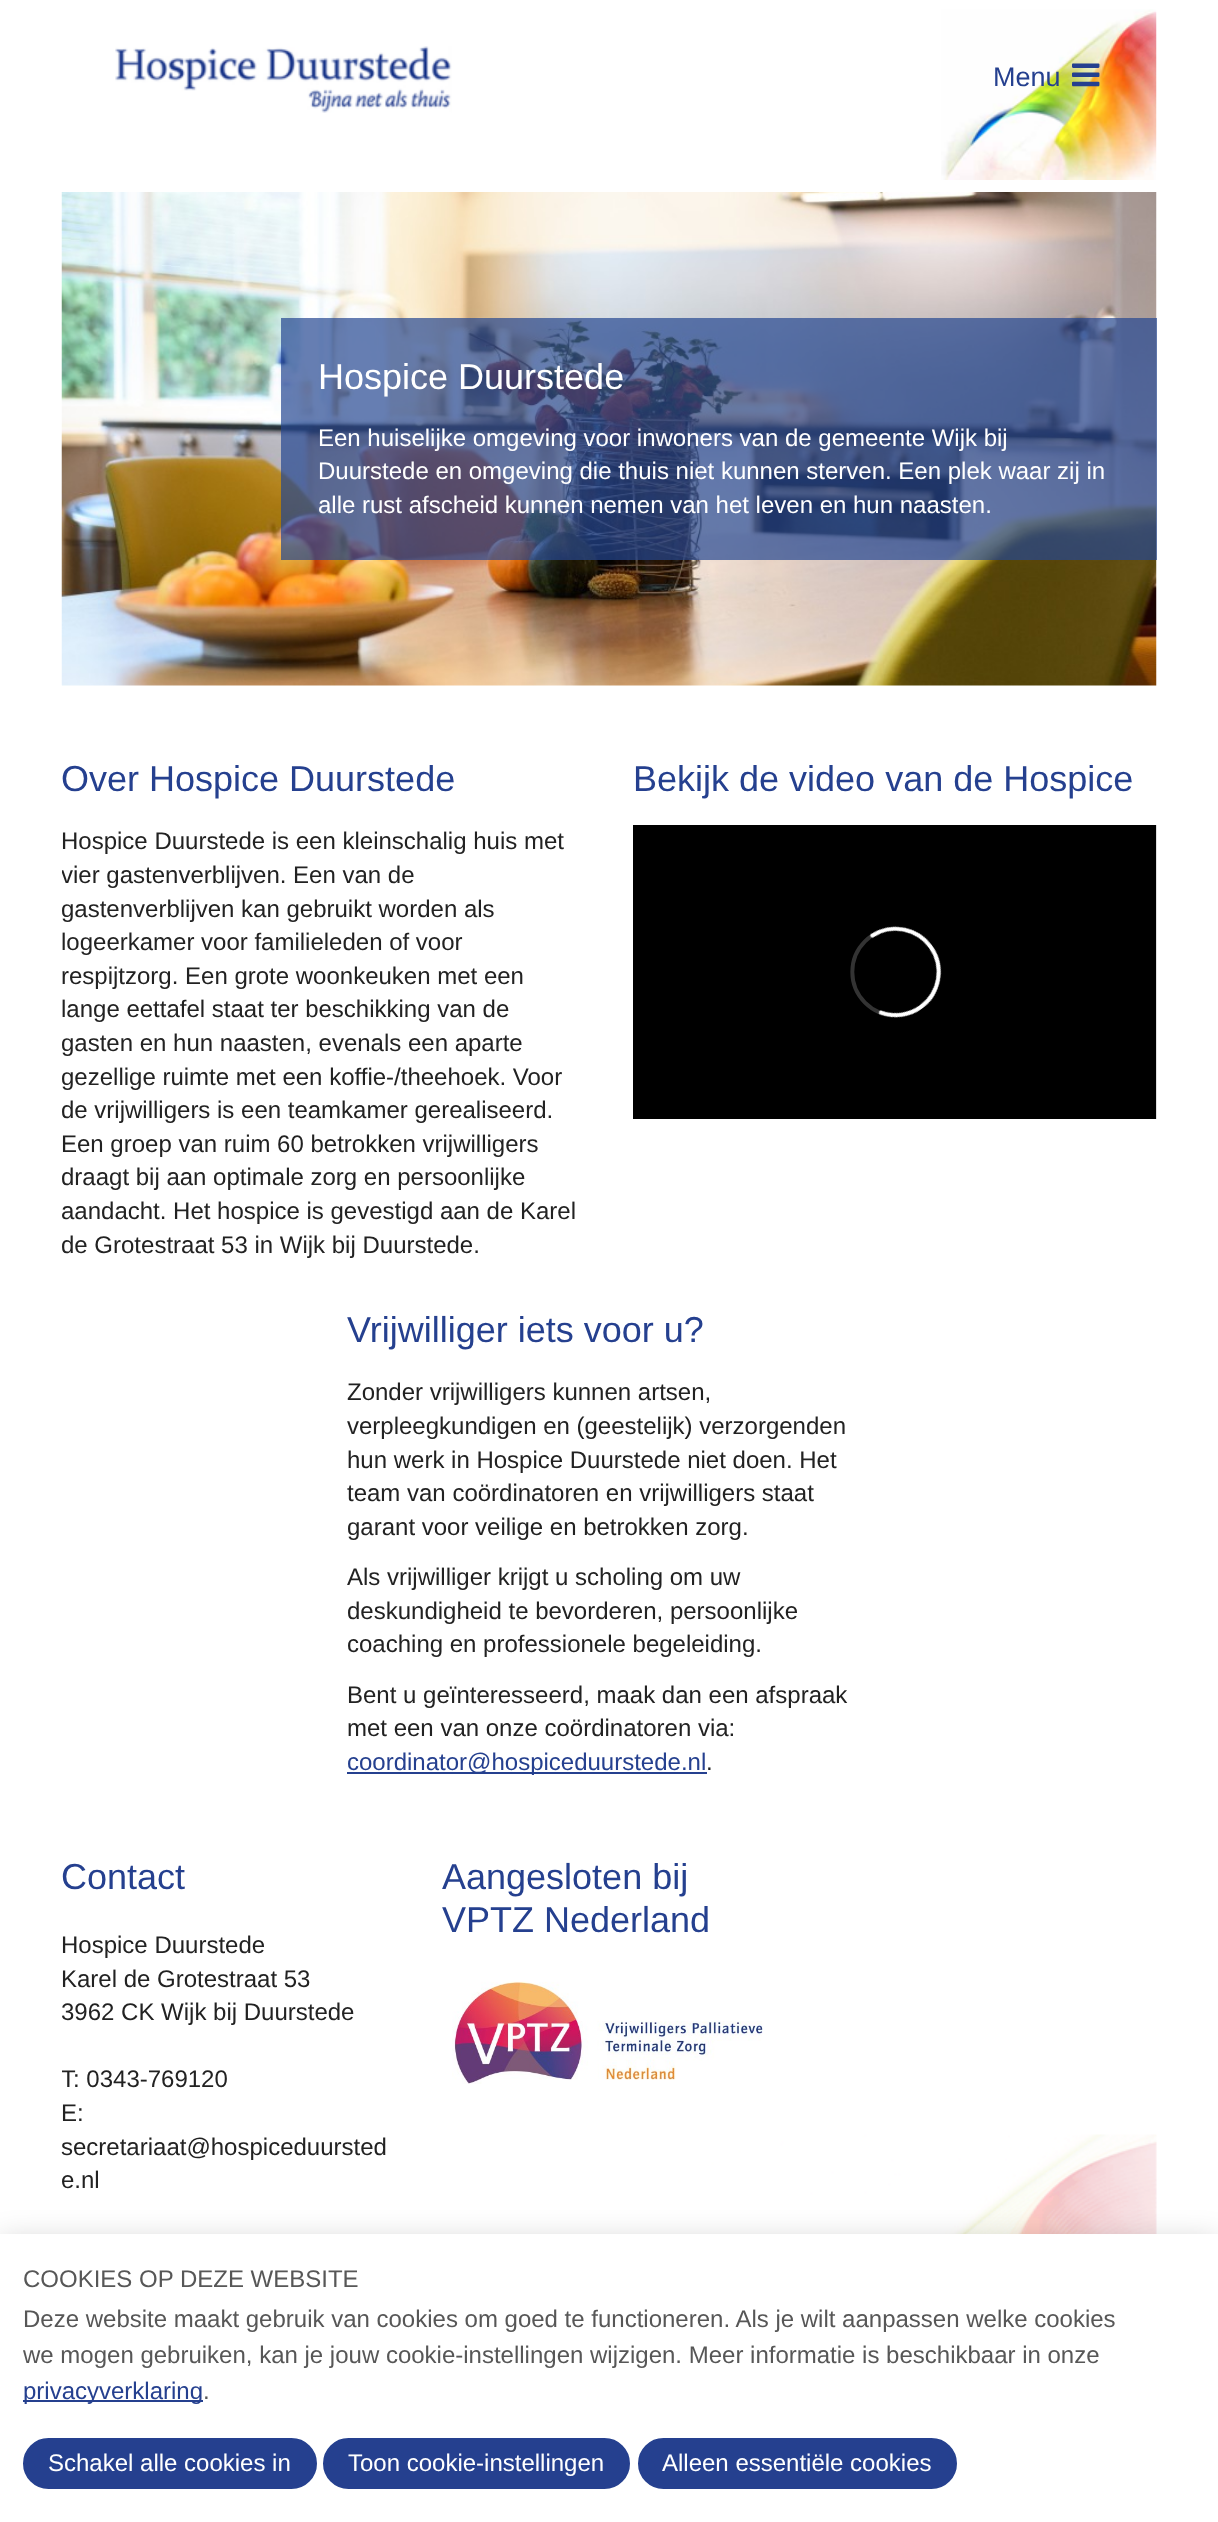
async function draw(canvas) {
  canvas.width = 1218
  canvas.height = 2522
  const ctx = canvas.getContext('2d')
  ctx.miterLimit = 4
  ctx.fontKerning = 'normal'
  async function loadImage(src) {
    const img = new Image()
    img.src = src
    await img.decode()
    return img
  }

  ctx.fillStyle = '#fff'
  ctx.fillRect(0, 0, 1218, 2522)
  ctx.drawImage(await loadImage('image0.png'), 671, 2134, 486, 100)
  ctx.drawImage(await loadImage('image1.png'), 941, 9, 216, 171)
  ctx.drawImage(await loadImage('image2.png'), 115, 46, 337, 67)
  ctx.font = '27px Liberation Sans'
  ctx.fillStyle = '#25408f'
  ctx.fillText('Menu', 993, 86)
  ctx.font = '32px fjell'
  ctx.fillText('☰', 1072, 86)
  ctx.drawImage(await loadImage('image3.png'), 61, 192, 1096, 494)
  ctx.fillStyle = '#254791b3'
  ctx.fillRect(281, 318, 876, 242)
  ctx.font = '36px Liberation Sans'
  ctx.fillStyle = '#fff'
  ctx.fillText('Hospice Duurstede', 318, 389)
  ctx.font = '24px Liberation Sans'
  ctx.fillText('Een huiselijke omgeving voor inwoners van de gemeente Wijk bij', 318, 446)
  ctx.fillText('Duurstede en omgeving die thuis niet kunnen sterven. Een plek waar zij in', 318, 479)
  ctx.fillText('alle rust afscheid kunnen nemen van het leven en hun naasten.', 318, 513)
  ctx.font = '36px Liberation Sans'
  ctx.fillStyle = '#25408f'
  ctx.fillText('Over Hospice Duurstede', 61, 791)
  ctx.font = '24px Liberation Sans'
  ctx.fillStyle = '#222'
  ctx.fillText('Hospice Duurstede is een kleinschalig huis met', 61, 849)
  ctx.save()
  ctx.beginPath()
  ctx.rect(62, 0, 1095, 2522)
  ctx.clip()
  ctx.fillText('vier gastenverblijven. Een van de', 61, 883)
  ctx.restore()
  ctx.fillText('gastenverblijven kan gebruikt worden als', 61, 917)
  ctx.fillText('logeerkamer voor familieleden of voor', 61, 950)
  ctx.fillText('respijtzorg. Een grote woonkeuken met een', 61, 984)
  ctx.fillText('lange eettafel staat ter beschikking van de', 61, 1017)
  ctx.fillText('gasten en hun naasten, evenals een aparte', 61, 1051)
  ctx.fillText('gezellige ruimte met een koffie-/theehoek. Voor', 61, 1085)
  ctx.fillText('de vrijwilligers is een teamkamer gerealiseerd.', 61, 1118)
  ctx.fillText('Een groep van ruim 60 betrokken vrijwilligers', 61, 1152)
  ctx.fillText('draagt bij aan optimale zorg en persoonlijke', 61, 1185)
  ctx.fillText('aandacht. Het hospice is gevestigd aan de Karel', 61, 1219)
  ctx.fillText('de Grotestraat 53 in Wijk bij Duurstede.', 61, 1253)
  ctx.font = '36px Liberation Sans'
  ctx.fillStyle = '#25408f'
  ctx.fillText('Bekijk de video van de Hospice', 633, 791)
  ctx.drawImage(await loadImage('image4.png'), 633, 825, 524, 294)
  ctx.fillText('Vrijwilliger iets voor u?', 347, 1342)
  ctx.font = '24px Liberation Sans'
  ctx.fillStyle = '#222'
  ctx.fillText('Zonder vrijwilligers kunnen artsen,', 347, 1400)
  ctx.fillText('verpleegkundigen en (geestelijk) verzorgenden', 347, 1434)
  ctx.fillText('hun werk in Hospice Duurstede niet doen. Het', 347, 1468)
  ctx.fillText('team van coördinatoren en vrijwilligers staat', 347, 1501)
  ctx.fillText('garant voor veilige en betrokken zorg.', 347, 1535)
  ctx.fillText('Als vrijwilliger krijgt u scholing om uw', 347, 1585)
  ctx.fillText('deskundigheid te bevorderen, persoonlijke', 347, 1619)
  ctx.fillText('coaching en professionele begeleiding.', 347, 1652)
  ctx.fillText('Bent u geïnteresseerd, maak dan een afspraak', 347, 1703)
  ctx.fillText('met een van onze coördinatoren via:', 347, 1736)
  ctx.fillStyle = '#25408f'
  ctx.fillRect(347, 1772, 360, 2)
  ctx.fillText('coordinator@hospiceduurstede.nl', 347, 1770)
  ctx.fillStyle = '#222'
  ctx.fillText('.', 706, 1770)
  ctx.font = '36px Liberation Sans'
  ctx.fillStyle = '#25408f'
  ctx.fillText('Contact', 61, 1889)
  ctx.font = '24px Liberation Sans'
  ctx.fillStyle = '#222'
  ctx.fillText('Hospice Duurstede', 61, 1953)
  ctx.fillText('Karel de Grotestraat 53', 61, 1987)
  ctx.fillText('3962 CK Wijk bij Duurstede', 61, 2020)
  ctx.save()
  ctx.beginPath()
  ctx.rect(62, 0, 1095, 2522)
  ctx.clip()
  ctx.fillText('T: 0343-769120', 61, 2087)
  ctx.restore()
  ctx.fillText('E:', 61, 2121)
  ctx.fillText('secretariaat@hospiceduursted', 61, 2155)
  ctx.fillText('e.nl', 61, 2188)
  ctx.font = '36px Liberation Sans'
  ctx.fillStyle = '#25408f'
  ctx.fillText('Aangesloten bij', 442, 1889)
  ctx.fillText('VPTZ Nederland', 442, 1932)
  ctx.drawImage(await loadImage('image5.png'), 452, 1981, 311, 103)
  ctx.fillStyle = '#00000033'
  ctx.filter = 'blur(15px)'
  ctx.beginPath()
  ctx.rect(0, 2241, 1218, 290)
  ctx.fill()
  ctx.filter = 'none'
  ctx.fillStyle = '#fff'
  ctx.fillRect(0, 2234, 1218, 288)
  ctx.font = '24px Liberation Sans'
  ctx.fillStyle = '#575757'
  ctx.fillText('COOKIES OP DEZE WEBSITE', 23, 2287)
  ctx.fillText('Deze website maakt gebruik van cookies om goed te functioneren. Als je wilt aanpassen welke cookies', 23, 2327)
  ctx.fillText('we mogen gebruiken, kan je jouw cookie-instellingen wijzigen. Meer informatie is beschikbaar in onze', 23, 2363)
  ctx.fillStyle = '#25408f'
  ctx.fillRect(23, 2400, 180, 2)
  ctx.fillText('privacyverklaring', 23, 2399)
  ctx.fillStyle = '#575757'
  ctx.fillText('.', 203, 2399)
  ctx.fillStyle = '#25408f'
  ctx.beginPath()
  ctx.roundRect(24, 2439, 292, 49, 24.5)
  ctx.fill()
  ctx.strokeStyle = '#25408f'
  ctx.lineWidth = 2
  ctx.stroke()
  ctx.fillStyle = '#fff'
  ctx.fillText('Schakel alle cookies in', 48, 2471)
  ctx.fillStyle = '#25408f'
  ctx.beginPath()
  ctx.roundRect(324, 2439, 305, 49, 24.5)
  ctx.fill()
  ctx.stroke()
  ctx.fillStyle = '#fff'
  ctx.fillText('Toon cookie-instellingen', 348, 2471)
  ctx.fillStyle = '#25408f'
  ctx.beginPath()
  ctx.roundRect(639, 2439, 317, 49, 24.5)
  ctx.fill()
  ctx.stroke()
  ctx.fillStyle = '#fff'
  ctx.fillText('Alleen essentiële cookies', 662, 2471)
}

draw(document.querySelector('canvas'))
